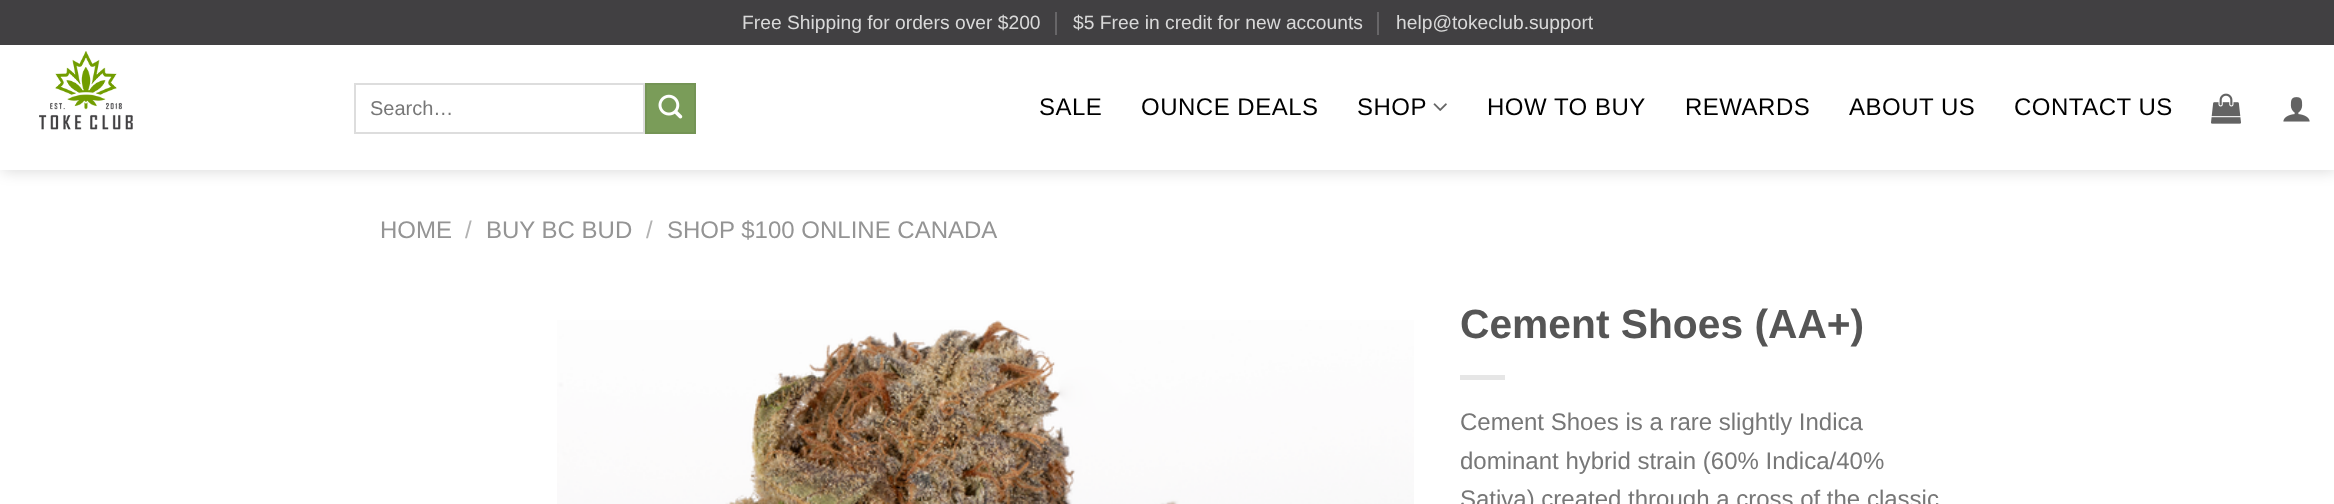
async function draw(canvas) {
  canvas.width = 2334
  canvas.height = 504
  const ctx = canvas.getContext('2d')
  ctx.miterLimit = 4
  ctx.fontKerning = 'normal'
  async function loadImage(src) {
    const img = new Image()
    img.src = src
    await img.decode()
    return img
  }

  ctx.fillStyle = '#fff'
  ctx.fillRect(0, 0, 2334, 504)
  ctx.fillStyle = '#00000026'
  ctx.filter = 'blur(7.5px)'
  ctx.beginPath()
  ctx.rect(2, 2, 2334, 169)
  ctx.fill()
  ctx.filter = 'none'
  ctx.fillStyle = '#414042'
  ctx.fillRect(0, 0, 2334, 45)
  ctx.font = '19.25px Liberation Sans'
  ctx.fillStyle = '#d9d9d9'
  ctx.fillText('Free Shipping for orders over $200', 742, 29)
  ctx.fillStyle = '#676668'
  ctx.fillRect(1055, 12, 2, 23)
  ctx.fillStyle = '#d9d9d9'
  ctx.fillText('$5 Free in credit for new accounts', 1073, 29)
  ctx.fillStyle = '#676668'
  ctx.fillRect(1377, 12, 2, 23)
  ctx.fillStyle = '#d9d9d9'
  ctx.fillText('help@tokeclub.support', 1396, 29)
  ctx.fillStyle = '#fff'
  ctx.fillRect(0, 45, 2334, 125)
  ctx.drawImage(await loadImage('image0.png'), 39, 51, 94, 79)
  ctx.strokeStyle = '#ddd'
  ctx.lineWidth = 2
  ctx.strokeRect(355, 84, 289, 49)
  ctx.font = '20px Liberation Sans'
  ctx.fillStyle = '#777'
  ctx.fillText('Search…', 370, 115)
  ctx.fillStyle = '#7a9c59'
  ctx.beginPath()
  ctx.rect(646, 84, 49, 49)
  ctx.fill()
  ctx.strokeStyle = '#749455'
  ctx.stroke()
  ctx.drawImage(await loadImage('image1.png'), 658, 94, 25, 25)
  ctx.letterSpacing = '0.5px'
  ctx.font = '24px Liberation Sans'
  ctx.fillStyle = '#000'
  ctx.fillText('SALE', 1039, 115)
  ctx.fillText('OUNCE DEALS', 1141, 115)
  ctx.fillText('SHOP', 1357, 115)
  ctx.drawImage(await loadImage('image2.png'), 1433, 103, 14, 8)
  ctx.fillText('HOW TO BUY', 1487, 115)
  ctx.fillText('REWARDS', 1685, 115)
  ctx.fillText('ABOUT US', 1849, 115)
  ctx.fillText('CONTACT US', 2014, 115)
  ctx.drawImage(await loadImage('image3.png'), 2211, 93, 30, 31)
  ctx.drawImage(await loadImage('image4.png'), 2283, 97, 27, 25)
  ctx.letterSpacing = '0px'
  ctx.fillStyle = '#949494'
  ctx.fillText('HOME', 380, 238)
  ctx.fillStyle = '#b2b2b2'
  ctx.fillText('/', 465, 238)
  ctx.fillStyle = '#949494'
  ctx.fillText('BUY BC BUD', 486, 238)
  ctx.fillStyle = '#b2b2b2'
  ctx.fillText('/', 646, 238)
  ctx.fillStyle = '#949494'
  ctx.fillText('SHOP $100 ONLINE CANADA', 667, 238)
  ctx.drawImage(await loadImage('image5.png'), 557, 320, 857, 184)
  ctx.font = 'bold 40.75px Liberation Sans'
  ctx.fillStyle = '#555'
  ctx.fillText('Cement Shoes (AA+)', 1460, 338)
  ctx.fillStyle = '#e6e6e6'
  ctx.fillRect(1460, 375, 45, 5)
  ctx.font = '24px Liberation Sans'
  ctx.fillStyle = '#777'
  ctx.fillText('Cement Shoes is a rare slightly Indica', 1460, 430)
  ctx.fillText('dominant hybrid strain (60% Indica/40%', 1460, 469)
  ctx.fillText('Sativa) created through a cross of the classic', 1460, 507)
}

draw(document.querySelector('canvas'))
